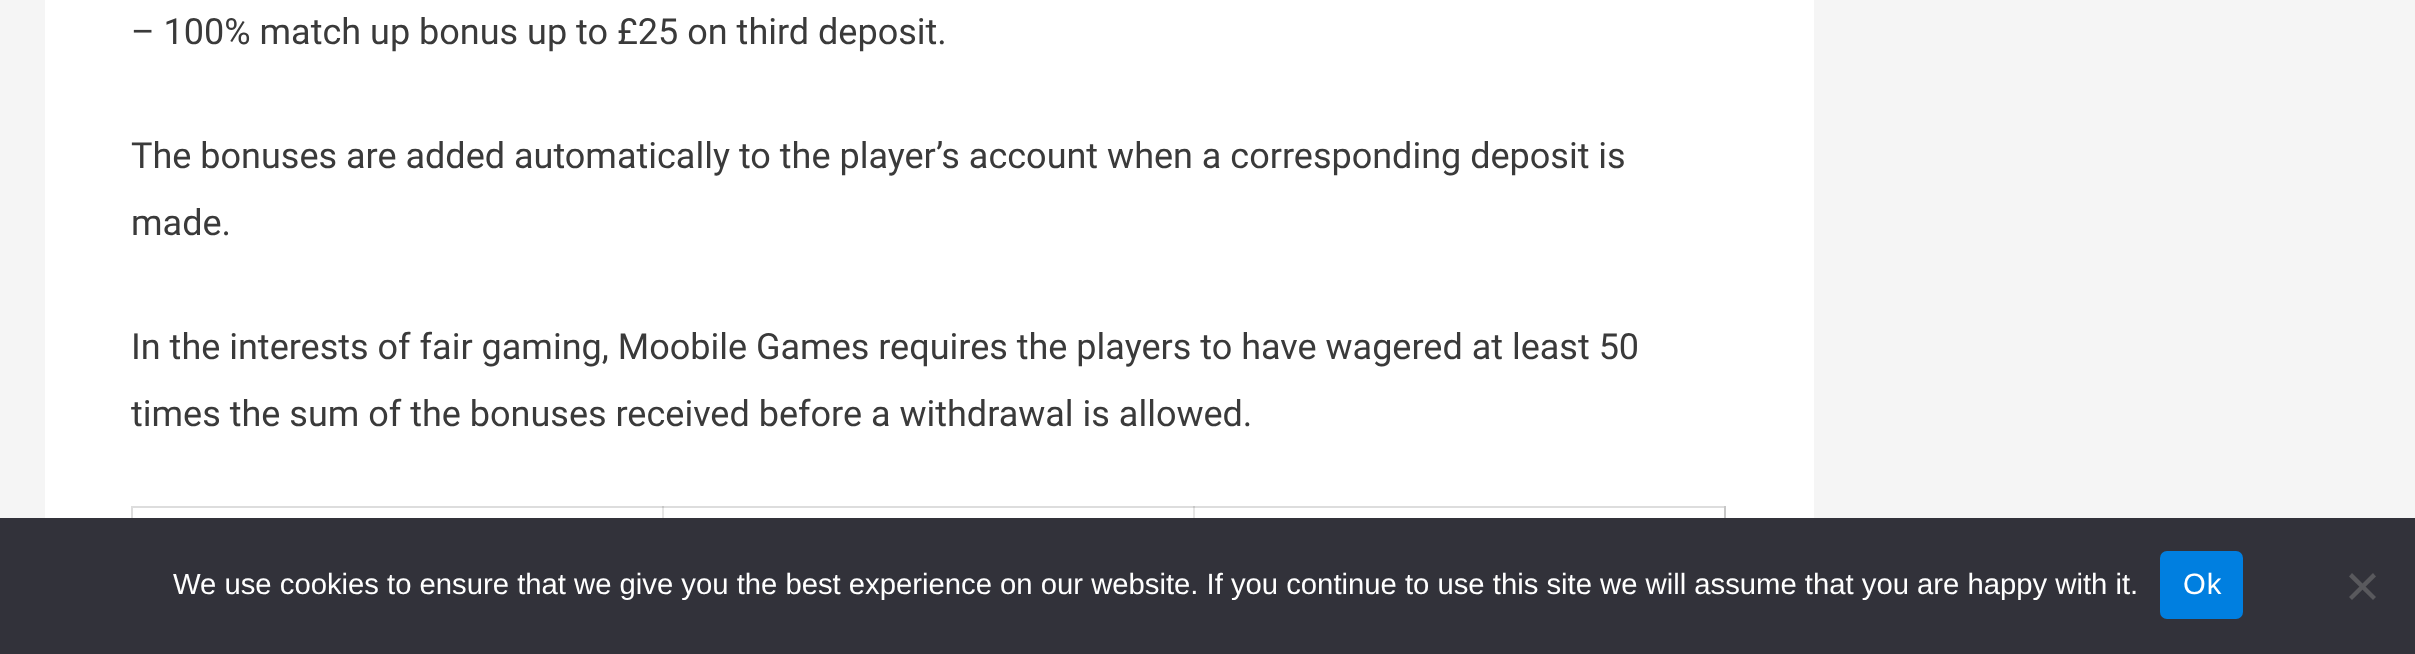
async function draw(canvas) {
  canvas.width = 2415
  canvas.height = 654
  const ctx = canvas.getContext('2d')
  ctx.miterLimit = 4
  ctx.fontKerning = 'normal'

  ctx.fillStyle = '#f5f5f5'
  ctx.fillRect(0, 0, 2415, 654)
  ctx.fillStyle = '#fff'
  ctx.fillRect(45, 0, 1769, 518)
  ctx.fillStyle = '#e6e6e6'
  ctx.fillRect(662, 506, 2, 12)
  ctx.fillRect(1193, 506, 2, 12)
  ctx.font = '36px Roboto'
  ctx.fillStyle = '#3a3a3a'
  ctx.fillText('– 100% match up bonus up to £25 on third deposit.', 131, 44)
  ctx.fillText('The bonuses are added automatically to the player’s account when a corresponding deposit is', 131, 168)
  ctx.fillText('made.', 131, 235)
  ctx.fillText('In the interests of fair gaming, Moobile Games requires the players to have wagered at least 50', 131, 359)
  ctx.fillText('times the sum of the bonuses received before a withdrawal is allowed.', 131, 426)
  ctx.fillStyle = '#ddd'
  ctx.fillRect(131, 506, 1595, 2)
  ctx.fillStyle = '#c7c7c7'
  ctx.fillRect(662, 506, 2, 2)
  ctx.fillRect(1193, 506, 2, 2)
  ctx.fillStyle = '#ddd'
  ctx.fillRect(131, 506, 2, 12)
  ctx.fillStyle = '#c7c7c7'
  ctx.fillRect(1724, 506, 2, 12)
  ctx.fillStyle = '#32323a'
  ctx.fillRect(0, 518, 2415, 136)
  ctx.font = '29.25px Liberation Sans'
  ctx.fillStyle = '#fff'
  ctx.fillText('We use cookies to ensure that we give you the best experience on our website. If you continue to use this site we will assume that you are happy with it.', 173, 594)
  ctx.fillStyle = '#007fe0'
  ctx.beginPath()
  ctx.roundRect(2160, 551, 83, 68, 7)
  ctx.fill()
  ctx.letterSpacing = '1px'
  ctx.fillStyle = '#fff'
  ctx.fillText('Ok', 2183, 594)
  ctx.fillStyle = '#59595d'
  ctx.beginPath()
  ctx.moveTo(2373, 573)
  ctx.lineTo(2376, 576.5)
  ctx.lineTo(2352, 600)
  ctx.lineTo(2349, 597)
  ctx.closePath()
  ctx.fill()
  ctx.beginPath()
  ctx.moveTo(2349, 576.5)
  ctx.lineTo(2352, 573)
  ctx.lineTo(2376, 597)
  ctx.lineTo(2373, 600)
  ctx.closePath()
  ctx.fill()
}

draw(document.querySelector('canvas'))
